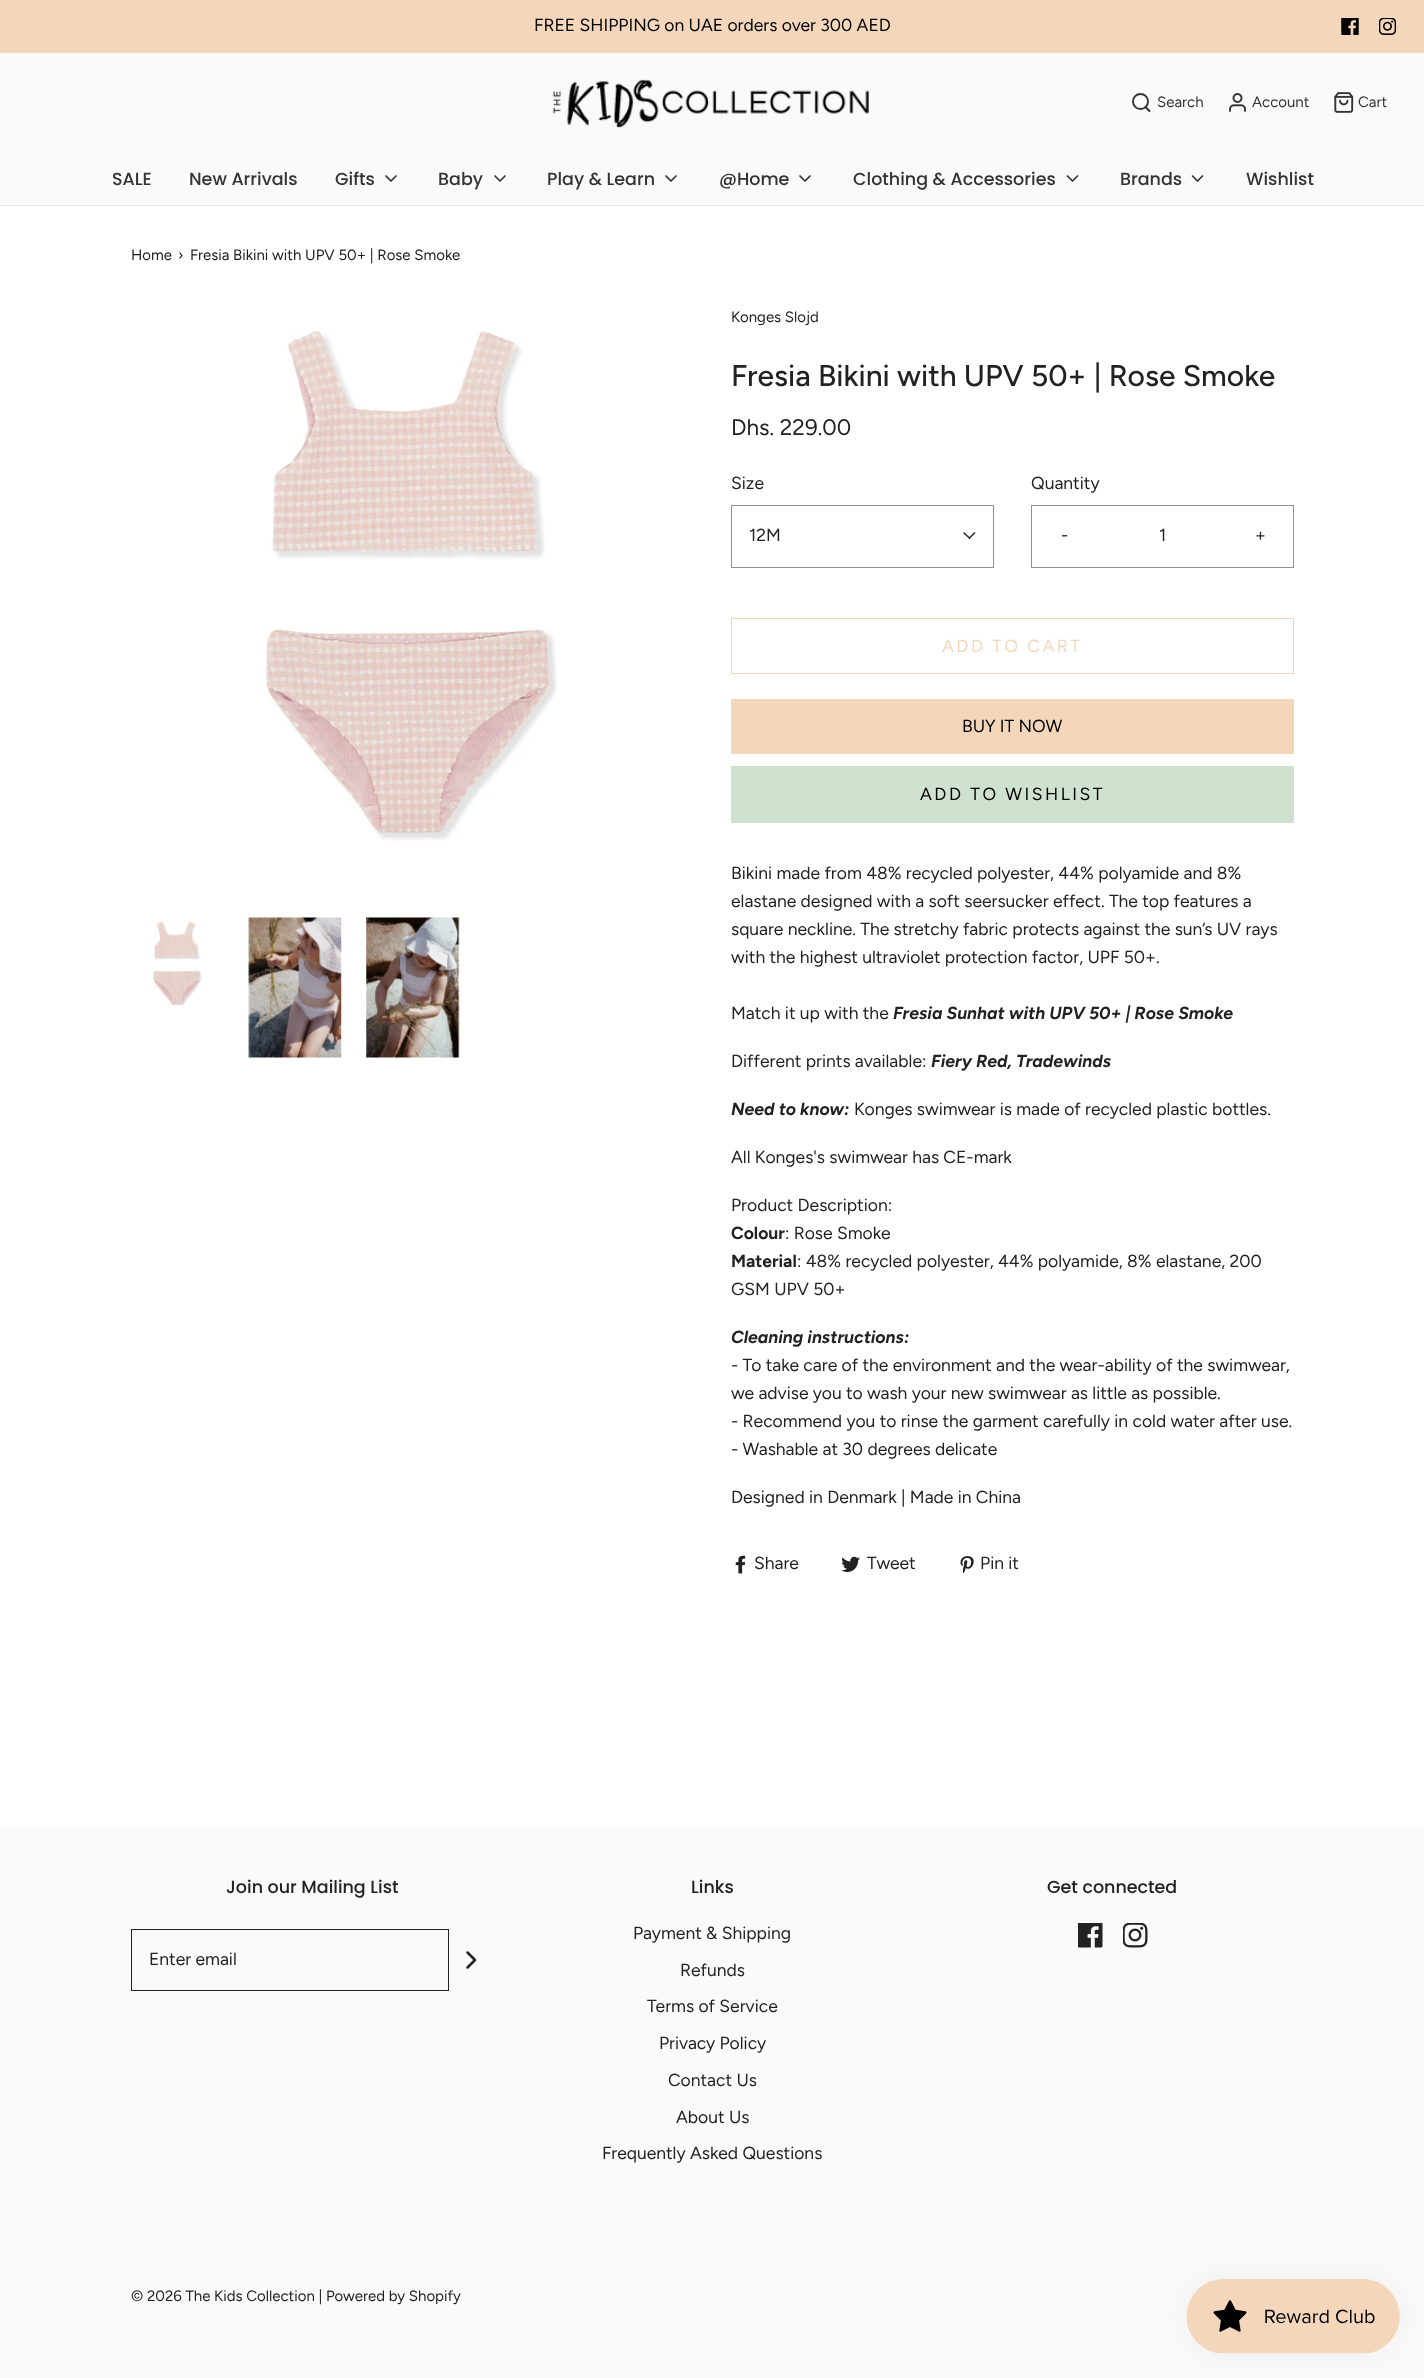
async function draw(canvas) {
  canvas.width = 1424
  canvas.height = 2378
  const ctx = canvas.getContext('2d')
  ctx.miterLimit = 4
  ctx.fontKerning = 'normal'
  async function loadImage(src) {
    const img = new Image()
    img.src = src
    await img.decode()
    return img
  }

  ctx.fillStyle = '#fff'
  ctx.fillRect(0, 0, 1424, 2378)
  ctx.fillStyle = '#f4d7bb'
  ctx.fillRect(0, 0, 1424, 53)
  ctx.font = '17.5px Figtree'
  ctx.fillStyle = '#000'
  ctx.fillText('FREE SHIPPING on UAE orders over 300 AED', 534, 31)
  ctx.drawImage(await loadImage('image0.png'), 1341, 18, 18, 17)
  ctx.drawImage(await loadImage('image1.png'), 1379, 18, 17, 17)
  ctx.fillStyle = '#fafafa'
  ctx.fillRect(0, 53, 1424, 152)
  ctx.fillStyle = '#e6e6e6'
  ctx.fillRect(0, 205, 1424, 1)
  ctx.drawImage(await loadImage('image2.png'), 552, 79, 317, 49)
  ctx.beginPath()
  ctx.arc(1140.5, 101.5, 7.5, 0, 2 * Math.PI)
  ctx.strokeStyle = '#333'
  ctx.lineWidth = 1.9
  ctx.stroke()
  ctx.beginPath()
  ctx.moveTo(1149.5, 111)
  ctx.lineTo(1145.5, 107)
  ctx.lineCap = 'round'
  ctx.lineJoin = 'round'
  ctx.stroke()
  ctx.font = '15px Figtree'
  ctx.fillStyle = '#333'
  ctx.fillText('Search', 1157, 107)
  ctx.drawImage(await loadImage('image3.png'), 1229, 93, 17, 19)
  ctx.fillText('Account', 1252, 107)
  ctx.drawImage(await loadImage('image4.png'), 1334, 92, 20, 21)
  ctx.fillText('Cart', 1358, 107)
  ctx.font = '500 17.5px Poppins'
  ctx.fillText('SALE', 112, 185)
  ctx.fillText('New Arrivals', 189, 185)
  ctx.fillText('Gifts', 335, 185)
  ctx.beginPath()
  ctx.moveTo(386, 176)
  ctx.lineTo(391, 181)
  ctx.lineTo(396, 176)
  ctx.lineWidth = 1.7
  ctx.stroke()
  ctx.fillText('Baby', 438, 185)
  ctx.beginPath()
  ctx.moveTo(495, 176)
  ctx.lineTo(500, 181)
  ctx.lineTo(505, 176)
  ctx.stroke()
  ctx.fillText('Play & Learn', 547, 185)
  ctx.beginPath()
  ctx.moveTo(666, 176)
  ctx.lineTo(671, 181)
  ctx.lineTo(676, 176)
  ctx.stroke()
  ctx.fillText('@Home', 719, 185)
  ctx.beginPath()
  ctx.moveTo(800, 176)
  ctx.lineTo(805, 181)
  ctx.lineTo(810, 176)
  ctx.stroke()
  ctx.fillText('Clothing & Accessories', 853, 185)
  ctx.beginPath()
  ctx.moveTo(1067.5, 176)
  ctx.lineTo(1072.5, 181)
  ctx.lineTo(1077.5, 176)
  ctx.stroke()
  ctx.fillText('Brands', 1120, 185)
  ctx.beginPath()
  ctx.moveTo(1192.5, 176)
  ctx.lineTo(1197.5, 181)
  ctx.lineTo(1202.5, 176)
  ctx.stroke()
  ctx.fillText('Wishlist', 1246, 185)
  ctx.font = '15px Figtree'
  ctx.fillStyle = '#222'
  ctx.fillText('Home', 131, 260)
  ctx.fillText('›', 178, 260)
  ctx.fillText('Fresia Bikini with UPV 50+ | Rose Smoke', 190, 260)
  ctx.drawImage(await loadImage('image5.png'), 266, 331, 292, 510)
  ctx.drawImage(await loadImage('image6.png'), 153, 921, 49, 85)
  ctx.drawImage(await loadImage('image7.png'), 248, 917, 94, 141)
  ctx.drawImage(await loadImage('image8.png'), 366, 917, 94, 141)
  ctx.fillText('Konges Slojd', 731, 322)
  ctx.font = '500 30px Figtree'
  ctx.fillText('Fresia Bikini with UPV 50+ | Rose Smoke', 731, 386)
  ctx.font = '22.5px Figtree'
  ctx.fillText('Dhs. 229.00', 731, 435)
  ctx.font = '17.5px Figtree'
  ctx.fillText('Size', 731, 489)
  ctx.strokeStyle = '#919191'
  ctx.lineWidth = 1
  ctx.lineJoin = 'miter'
  ctx.strokeRect(731.5, 505.5, 262, 62)
  ctx.fillText('12M', 749, 541)
  ctx.beginPath()
  ctx.moveTo(974.5, 532)
  ctx.lineTo(975.5, 533)
  ctx.lineTo(969.5, 539)
  ctx.lineTo(968.5, 538)
  ctx.closePath()
  ctx.fill()
  ctx.beginPath()
  ctx.moveTo(964, 532)
  ctx.lineTo(970.5, 538)
  ctx.lineTo(969.5, 539)
  ctx.lineTo(963, 533)
  ctx.closePath()
  ctx.fill()
  ctx.fillText('Quantity', 1031, 489)
  ctx.strokeRect(1031.5, 505.5, 262, 62)
  ctx.fillText('-', 1061, 541)
  ctx.fillText('1', 1159, 541)
  ctx.fillText('+', 1255, 541)
  ctx.strokeStyle = '#f4d7bb'
  ctx.strokeRect(731.5, 618.5, 562, 55)
  ctx.letterSpacing = '2.5px'
  ctx.fillStyle = '#f4d7bb'
  ctx.fillText('ADD TO CART', 942, 652)
  ctx.fillRect(731, 699, 563, 55)
  ctx.letterSpacing = '0px'
  ctx.fillStyle = '#000'
  ctx.fillText('BUY IT NOW', 962, 732)
  ctx.fillStyle = '#cfe2cf'
  ctx.fillRect(731, 766, 563, 57)
  ctx.letterSpacing = '2.5px'
  ctx.fillStyle = '#000'
  ctx.fillText('ADD TO WISHLIST', 920, 800)
  ctx.letterSpacing = '0px'
  ctx.fillStyle = '#222'
  ctx.fillText('Bikini made from 48% recycled polyester, 44% polyamide and 8%', 731, 879)
  ctx.fillText('elastane designed with a soft seersucker effect. The top features a', 731, 907)
  ctx.fillText('square neckline. The stretchy fabric protects against the sun’s UV rays', 731, 935)
  ctx.fillText('with the highest ultraviolet protection factor, UPF 50+.', 731, 963)
  ctx.fillText('Match it up with the', 731, 1019)
  ctx.font = 'italic bold 17.5px Figtree'
  ctx.fillText('Fresia Sunhat with UPV 50+ | Rose Smoke', 893, 1019)
  ctx.font = '17.5px Figtree'
  ctx.fillText('Different prints available:', 731, 1067)
  ctx.font = 'italic bold 17.5px Figtree'
  ctx.fillText('Fiery Red, Tradewinds', 931, 1067)
  ctx.fillText('Need to know:', 731, 1115)
  ctx.font = '17.5px Figtree'
  ctx.fillText('Konges swimwear is made of recycled plastic bottles.', 854, 1115)
  ctx.fillText('All Konges\'s swimwear has CE-mark', 731, 1163)
  ctx.fillText('Product Description:', 731, 1211)
  ctx.font = 'bold 17.5px Figtree'
  ctx.fillText('Colour', 731, 1239)
  ctx.font = '17.5px Figtree'
  ctx.fillText(': Rose Smoke', 785, 1239)
  ctx.font = 'bold 17.5px Figtree'
  ctx.fillText('Material', 731, 1267)
  ctx.font = '17.5px Figtree'
  ctx.fillText(': 48% recycled polyester, 44% polyamide, 8% elastane, 200', 797, 1267)
  ctx.fillText('GSM UPV 50+', 731, 1295)
  ctx.font = 'italic bold 17.5px Figtree'
  ctx.fillText('Cleaning instructions:', 731, 1343)
  ctx.font = '17.5px Figtree'
  ctx.fillText('- To take care of the environment and the wear-ability of the swimwear,', 731, 1371)
  ctx.fillText('we advise you to wash your new swimwear as little as possible.', 731, 1399)
  ctx.fillText('- Recommend you to rinse the garment carefully in cold water after use.', 731, 1427)
  ctx.fillText('- Washable at 30 degrees delicate', 731, 1455)
  ctx.fillText('Designed in Denmark | Made in China', 731, 1503)
  ctx.drawImage(await loadImage('image9.png'), 735, 1555, 11, 19)
  ctx.fillText('Share', 754, 1569)
  ctx.drawImage(await loadImage('image10.png'), 841, 1556, 19, 16)
  ctx.fillText('Tweet', 867, 1569)
  ctx.drawImage(await loadImage('image11.png'), 960, 1556, 14, 18)
  ctx.fillText('Pin it', 980, 1569)
  ctx.fillStyle = '#fafafa'
  ctx.fillRect(0, 1825, 1424, 553)
  ctx.font = '500 17.5px Poppins'
  ctx.fillStyle = '#222'
  ctx.fillText('Join our Mailing List', 226, 1893)
  ctx.strokeStyle = '#222'
  ctx.strokeRect(131.5, 1929.5, 317, 61)
  ctx.font = '17.5px Figtree'
  ctx.fillText('Enter email', 149, 1965)
  ctx.beginPath()
  ctx.moveTo(467.5, 1967.5)
  ctx.lineTo(475, 1960)
  ctx.lineTo(467.5, 1952.5)
  ctx.lineWidth = 2.5
  ctx.lineJoin = 'round'
  ctx.stroke()
  ctx.font = '500 17.5px Poppins'
  ctx.fillText('Links', 691, 1893)
  ctx.font = '17.5px Figtree'
  ctx.fillText('Payment & Shipping', 633, 1939)
  ctx.fillText('Refunds', 680, 1976)
  ctx.fillText('Terms of Service', 647, 2012)
  ctx.fillText('Privacy Policy', 659, 2049)
  ctx.fillText('Contact Us', 668, 2086)
  ctx.fillText('About Us', 676, 2123)
  ctx.fillText('Frequently Asked Questions', 602, 2159)
  ctx.font = '500 17.5px Poppins'
  ctx.fillText('Get connected', 1047, 1893)
  ctx.drawImage(await loadImage('image12.png'), 1078, 1923, 25, 25)
  ctx.drawImage(await loadImage('image13.png'), 1123, 1923, 25, 25)
  ctx.font = '15px Figtree'
  ctx.fillText('© 2026 The Kids Collection | Powered by Shopify', 131, 2301)
  ctx.fillStyle = '#0000000d'
  ctx.filter = 'blur(15.5px)'
  ctx.beginPath()
  ctx.roundRect(1186, 2279, 214, 75, 37.5)
  ctx.fill()
  ctx.filter = 'none'
  ctx.drawImage(await loadImage('image14.png'), 1186, 2279, 214, 75)
}

draw(document.querySelector('canvas'))
